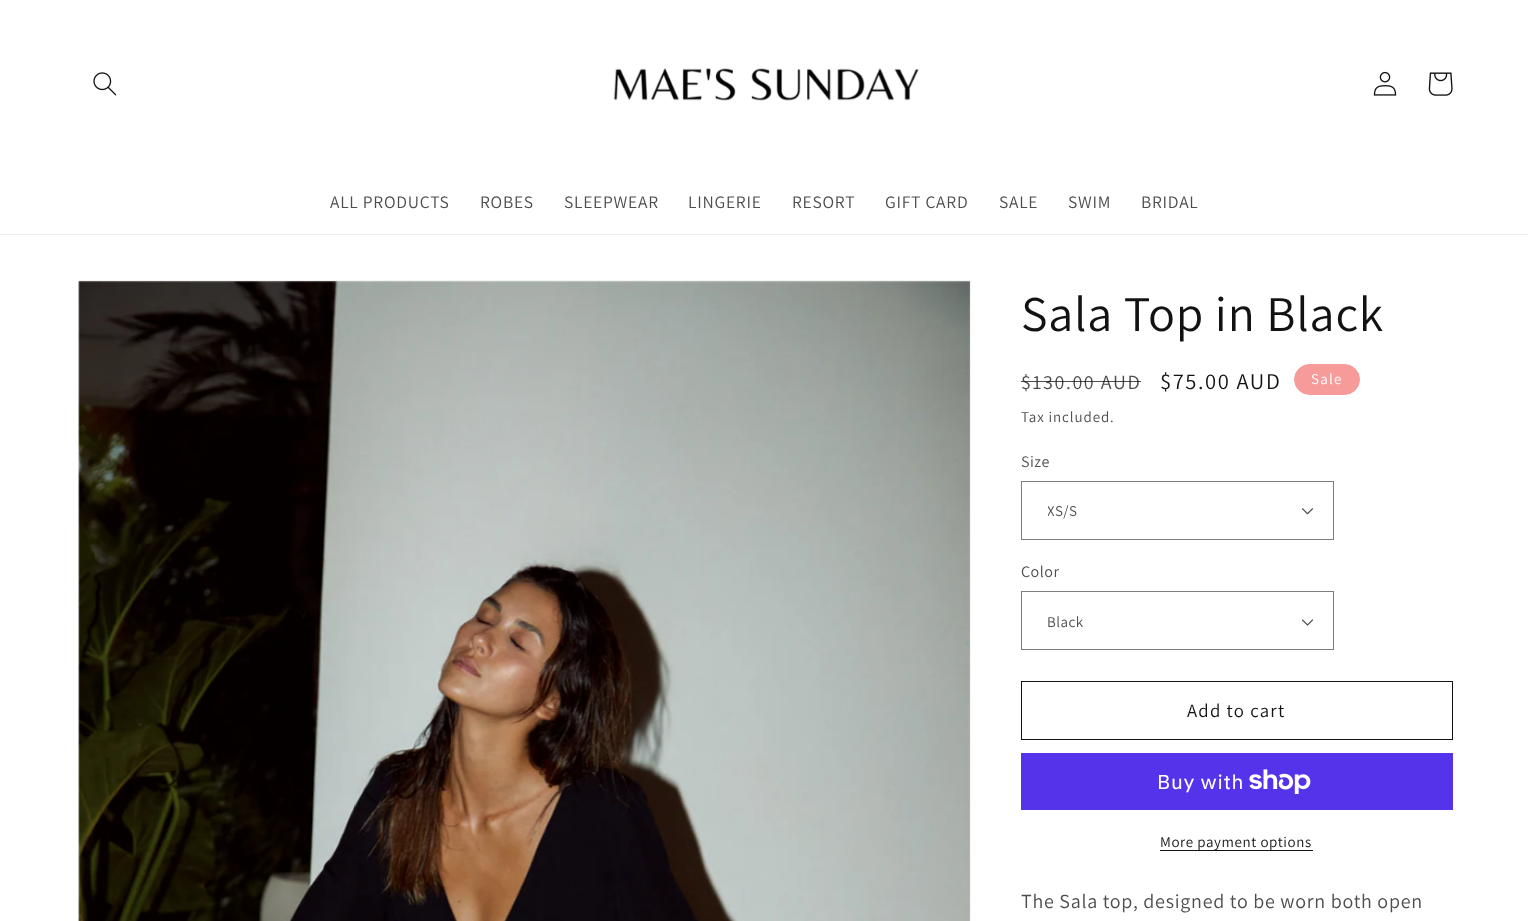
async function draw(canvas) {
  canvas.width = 1528
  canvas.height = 921
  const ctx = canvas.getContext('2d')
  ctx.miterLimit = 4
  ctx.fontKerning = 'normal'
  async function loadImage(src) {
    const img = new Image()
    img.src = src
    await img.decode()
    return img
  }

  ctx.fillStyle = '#fff'
  ctx.fillRect(0, 0, 1528, 921)
  ctx.fillStyle = '#ececec'
  ctx.fillRect(0, 234, 1528, 1)
  ctx.drawImage(await loadImage('image0.png'), 93, 72, 24, 24)
  ctx.drawImage(await loadImage('image1.png'), 613, 68, 306, 33)
  ctx.drawImage(await loadImage('image2.png'), 1373, 71, 24, 25)
  ctx.drawImage(await loadImage('image3.png'), 1428, 72, 25, 24)
  ctx.letterSpacing = '0.75px'
  ctx.font = '17.5px Assistant'
  ctx.fillStyle = '#4d4d4d'
  ctx.fillText('ALL PRODUCTS', 330, 208)
  ctx.fillText('ROBES', 480, 208)
  ctx.fillText('SLEEPWEAR', 564, 208)
  ctx.fillText('LINGERIE', 688, 208)
  ctx.fillText('RESORT', 792, 208)
  ctx.fillText('GIFT CARD', 885, 208)
  ctx.fillText('SALE', 999, 208)
  ctx.fillText('SWIM', 1068, 208)
  ctx.fillText('BRIDAL', 1141, 208)
  ctx.strokeStyle = '#f3f3f3'
  ctx.strokeRect(78.5, 280.5, 892, 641)
  ctx.drawImage(await loadImage('image4.png'), 78, 281, 892, 640)
  ctx.font = '50px Assistant'
  ctx.fillStyle = '#121212'
  ctx.fillText('Sala Top in Black', 1021, 331)
  ctx.letterSpacing = '1.6px'
  ctx.font = '20px Assistant'
  ctx.fillStyle = '#4d4d4d'
  ctx.fillText('$130.00 AUD', 1021, 389)
  ctx.fillStyle = '#121212bf'
  ctx.fillRect(1021, 381, 120, 1)
  ctx.font = '22.5px Assistant'
  ctx.fillStyle = '#121212'
  ctx.fillText('$75.00 AUD', 1160, 389)
  ctx.fillStyle = '#f79a9a'
  ctx.beginPath()
  ctx.roundRect(1294.5, 364.5, 65, 30, 15)
  ctx.fill()
  ctx.strokeStyle = '#f79a9a'
  ctx.stroke()
  ctx.letterSpacing = '1.25px'
  ctx.font = '15px Assistant'
  ctx.fillStyle = '#fff'
  ctx.fillText('Sale', 1311, 384)
  ctx.letterSpacing = '0.9px'
  ctx.fillStyle = '#4d4d4d'
  ctx.fillText('Tax included.', 1021, 422)
  ctx.letterSpacing = '0.5px'
  ctx.font = '16px Assistant'
  ctx.fillText('Size', 1021, 467)
  ctx.drawImage(await loadImage('image5.png'), 1301, 508, 13, 7)
  ctx.strokeStyle = '#7d7d7d'
  ctx.strokeRect(1021.5, 481.5, 312, 58)
  ctx.save()
  ctx.beginPath()
  ctx.rect(1048, 499, 260, 24)
  ctx.clip()
  ctx.font = '15px Assistant'
  ctx.fillText('XS/S', 1047, 516)
  ctx.restore()
  ctx.fillText('Color', 1021, 577)
  ctx.drawImage(await loadImage('image6.png'), 1302, 619, 11, 7)
  ctx.strokeRect(1021.5, 591.5, 312, 58)
  ctx.font = '15px Assistant'
  ctx.fillText('Black', 1047, 627)
  ctx.strokeStyle = '#121212'
  ctx.strokeRect(1021.5, 681.5, 431, 58)
  ctx.letterSpacing = '1.25px'
  ctx.font = '18.75px Assistant'
  ctx.fillStyle = '#121212'
  ctx.fillText('Add to cart', 1187, 717)
  ctx.fillStyle = '#5433eb'
  ctx.fillRect(1021, 753, 432, 57)
  ctx.letterSpacing = '0.75px'
  ctx.font = '20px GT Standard'
  ctx.fillStyle = '#fff'
  ctx.fillText('Buy with', 1157, 789)
  ctx.drawImage(await loadImage('image7.png'), 1249, 769, 62, 25)
  ctx.fillStyle = '#121212'
  ctx.fillRect(1160, 850, 153, 1)
  ctx.letterSpacing = '0.6px'
  ctx.font = '15px Assistant'
  ctx.fillText('More payment options', 1160, 847)
  ctx.letterSpacing = '0.75px'
  ctx.font = '20px Assistant'
  ctx.fillStyle = '#4d4d4d'
  ctx.fillText('The Sala top, designed to be worn both open', 1021, 908)
}

draw(document.querySelector('canvas'))
